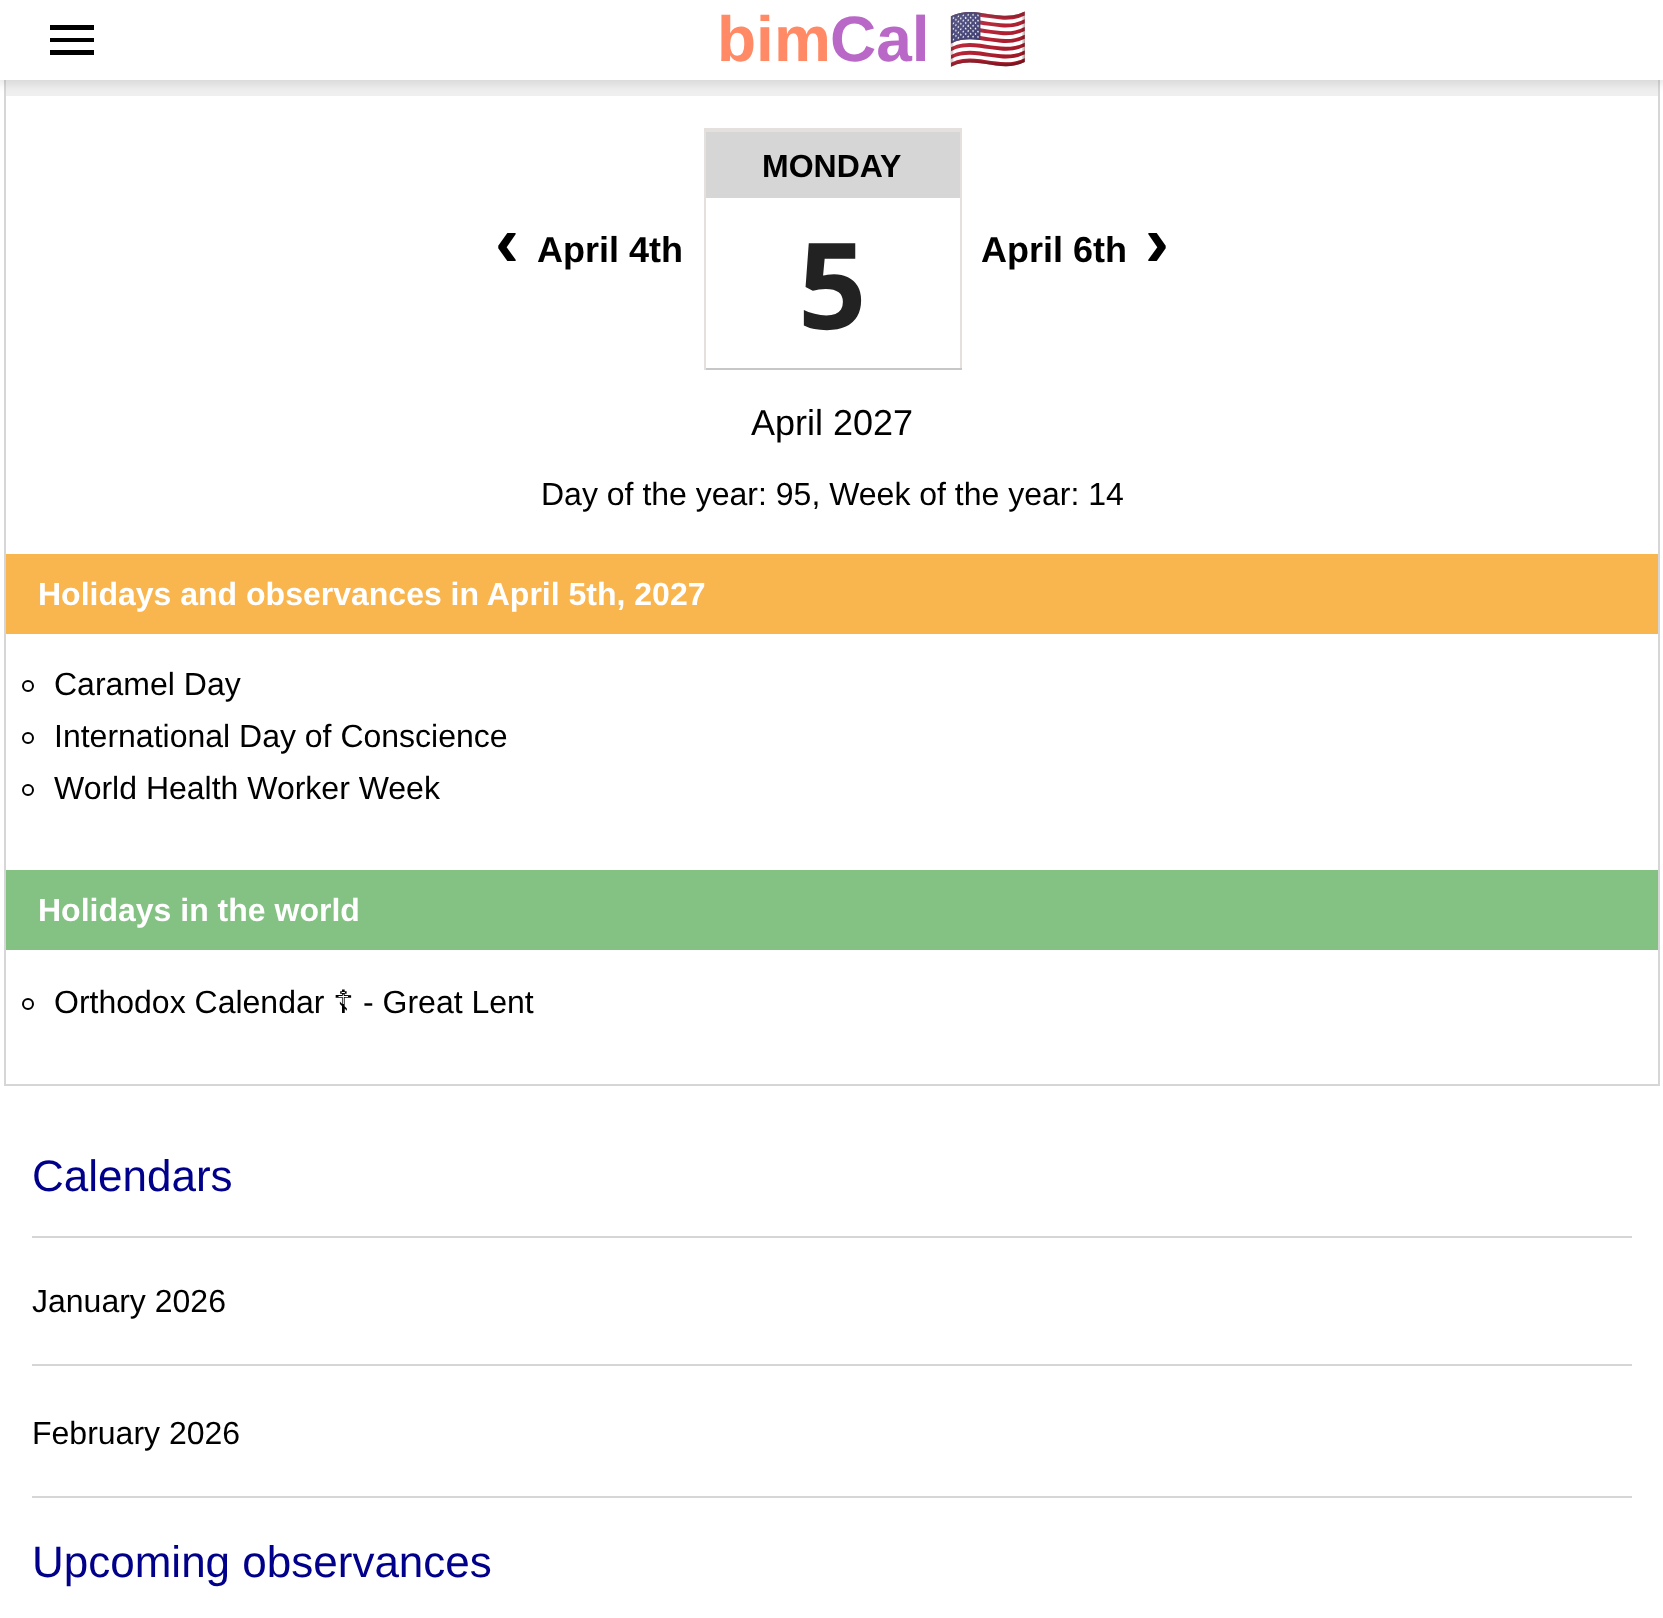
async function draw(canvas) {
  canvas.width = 1663
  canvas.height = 1618
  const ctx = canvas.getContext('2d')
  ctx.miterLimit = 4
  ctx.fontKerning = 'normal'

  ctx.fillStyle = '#fff'
  ctx.fillRect(0, 0, 1663, 1618)
  ctx.strokeStyle = '#d6d6d6'
  ctx.lineWidth = 2
  ctx.strokeRect(5, -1, 1654, 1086)
  ctx.fillStyle = '#efefef'
  ctx.fillRect(6, 80, 1652, 16)
  ctx.fillStyle = '#0000001a'
  ctx.filter = 'blur(5px)'
  ctx.beginPath()
  ctx.rect(-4, -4, 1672, 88)
  ctx.fill()
  ctx.filter = 'none'
  ctx.fillStyle = '#fff'
  ctx.fillRect(0, 0, 1663, 80)
  ctx.fillStyle = '#000'
  ctx.beginPath()
  ctx.moveTo(50, 55)
  ctx.lineTo(94, 55)
  ctx.lineTo(94, 50)
  ctx.lineTo(50, 50)
  ctx.lineTo(50, 55)
  ctx.moveTo(50, 42)
  ctx.lineTo(94, 42)
  ctx.lineTo(94, 38)
  ctx.lineTo(50, 38)
  ctx.lineTo(50, 42)
  ctx.moveTo(50, 25)
  ctx.lineTo(50, 30)
  ctx.lineTo(94, 30)
  ctx.lineTo(94, 25)
  ctx.lineTo(50, 25)
  ctx.fill()
  ctx.font = 'bold 64px Liberation Sans'
  ctx.fillStyle = '#ff8a65'
  ctx.fillText('bim', 717, 61)
  ctx.fillStyle = '#ba68c8'
  ctx.fillText('Cal', 830, 61)
  ctx.font = 'bold 64px Noto Color Emoji'
  ctx.fillStyle = '#42a5f5'
  ctx.fillText('🇺🇸', 948, 61)
  ctx.font = 'bold 72px Liberation Sans'
  ctx.fillStyle = '#000'
  ctx.fillText('‹', 495, 266)
  ctx.font = 'bold 36px Liberation Sans'
  ctx.fillText('April 4th', 537, 262)
  ctx.fillStyle = '#e4e0dd'
  ctx.fillRect(704, 128, 258, 2)
  ctx.fillRect(960, 128, 2, 242)
  ctx.fillStyle = '#c7c7c7'
  ctx.fillRect(704, 368, 258, 2)
  ctx.fillStyle = '#e4e0dd'
  ctx.fillRect(704, 128, 2, 242)
  ctx.fillStyle = '#d6d6d6'
  ctx.fillRect(706, 132, 254, 66)
  ctx.fillStyle = '#e4e0dd'
  ctx.fillRect(706, 130, 254, 2)
  ctx.font = 'bold 32px Liberation Sans'
  ctx.fillStyle = '#000'
  ctx.fillText('MONDAY', 762, 177)
  ctx.font = 'bold 120px Open Sans'
  ctx.fillStyle = '#222'
  ctx.fillText('5', 798, 329)
  ctx.font = 'bold 36px Liberation Sans'
  ctx.fillStyle = '#000'
  ctx.fillText('April 6th', 981, 262)
  ctx.font = 'bold 72px Liberation Sans'
  ctx.fillText('›', 1145, 266)
  ctx.font = '36px Liberation Sans'
  ctx.fillText('April 2027', 751, 435)
  ctx.font = '32px Liberation Sans'
  ctx.fillText('Day of the year: 95, Week of the year: 14', 541, 505)
  ctx.fillStyle = '#f9b64f'
  ctx.fillRect(6, 554, 1652, 80)
  ctx.font = 'bold 32px Liberation Sans'
  ctx.fillStyle = '#fff'
  ctx.fillText('Holidays and observances in April 5th, 2027', 38, 605)
  ctx.beginPath()
  ctx.arc(28, 686, 5, 0, 2 * Math.PI)
  ctx.strokeStyle = '#000'
  ctx.stroke()
  ctx.font = '32px Liberation Sans'
  ctx.fillStyle = '#000'
  ctx.fillText('Caramel Day', 54, 695)
  ctx.beginPath()
  ctx.arc(28, 738, 5, 0, 2 * Math.PI)
  ctx.stroke()
  ctx.fillText('International Day of Conscience', 54, 747)
  ctx.beginPath()
  ctx.arc(28, 790, 5, 0, 2 * Math.PI)
  ctx.stroke()
  ctx.fillText('World Health Worker Week', 54, 799)
  ctx.fillStyle = '#83c283'
  ctx.fillRect(6, 870, 1652, 80)
  ctx.font = 'bold 32px Liberation Sans'
  ctx.fillStyle = '#fff'
  ctx.fillText('Holidays in the world', 38, 921)
  ctx.beginPath()
  ctx.arc(28, 1004, 5, 0, 2 * Math.PI)
  ctx.stroke()
  ctx.font = '32px Liberation Sans'
  ctx.fillStyle = '#000'
  ctx.fillText('Orthodox Calendar', 54, 1013)
  ctx.font = '32px DejaVu Sans'
  ctx.fillText('☦', 333, 1013)
  ctx.font = '32px Liberation Sans'
  ctx.fillText('- Great Lent', 363, 1013)
  ctx.fillStyle = '#d6d6d6'
  ctx.fillRect(32, 1236, 1600, 2)
  ctx.font = '44px Liberation Sans'
  ctx.fillStyle = '#00008b'
  ctx.fillText('Calendars', 32, 1191)
  ctx.fillStyle = '#d6d6d6'
  ctx.fillRect(32, 1364, 1600, 2)
  ctx.font = '32px Liberation Sans'
  ctx.fillStyle = '#000'
  ctx.fillText('January 2026', 32, 1312)
  ctx.fillStyle = '#d6d6d6'
  ctx.fillRect(32, 1496, 1600, 2)
  ctx.fillStyle = '#000'
  ctx.fillText('February 2026', 32, 1444)
  ctx.font = '44px Liberation Sans'
  ctx.fillStyle = '#00008b'
  ctx.fillText('Upcoming observances', 32, 1577)
}

draw(document.querySelector('canvas'))
